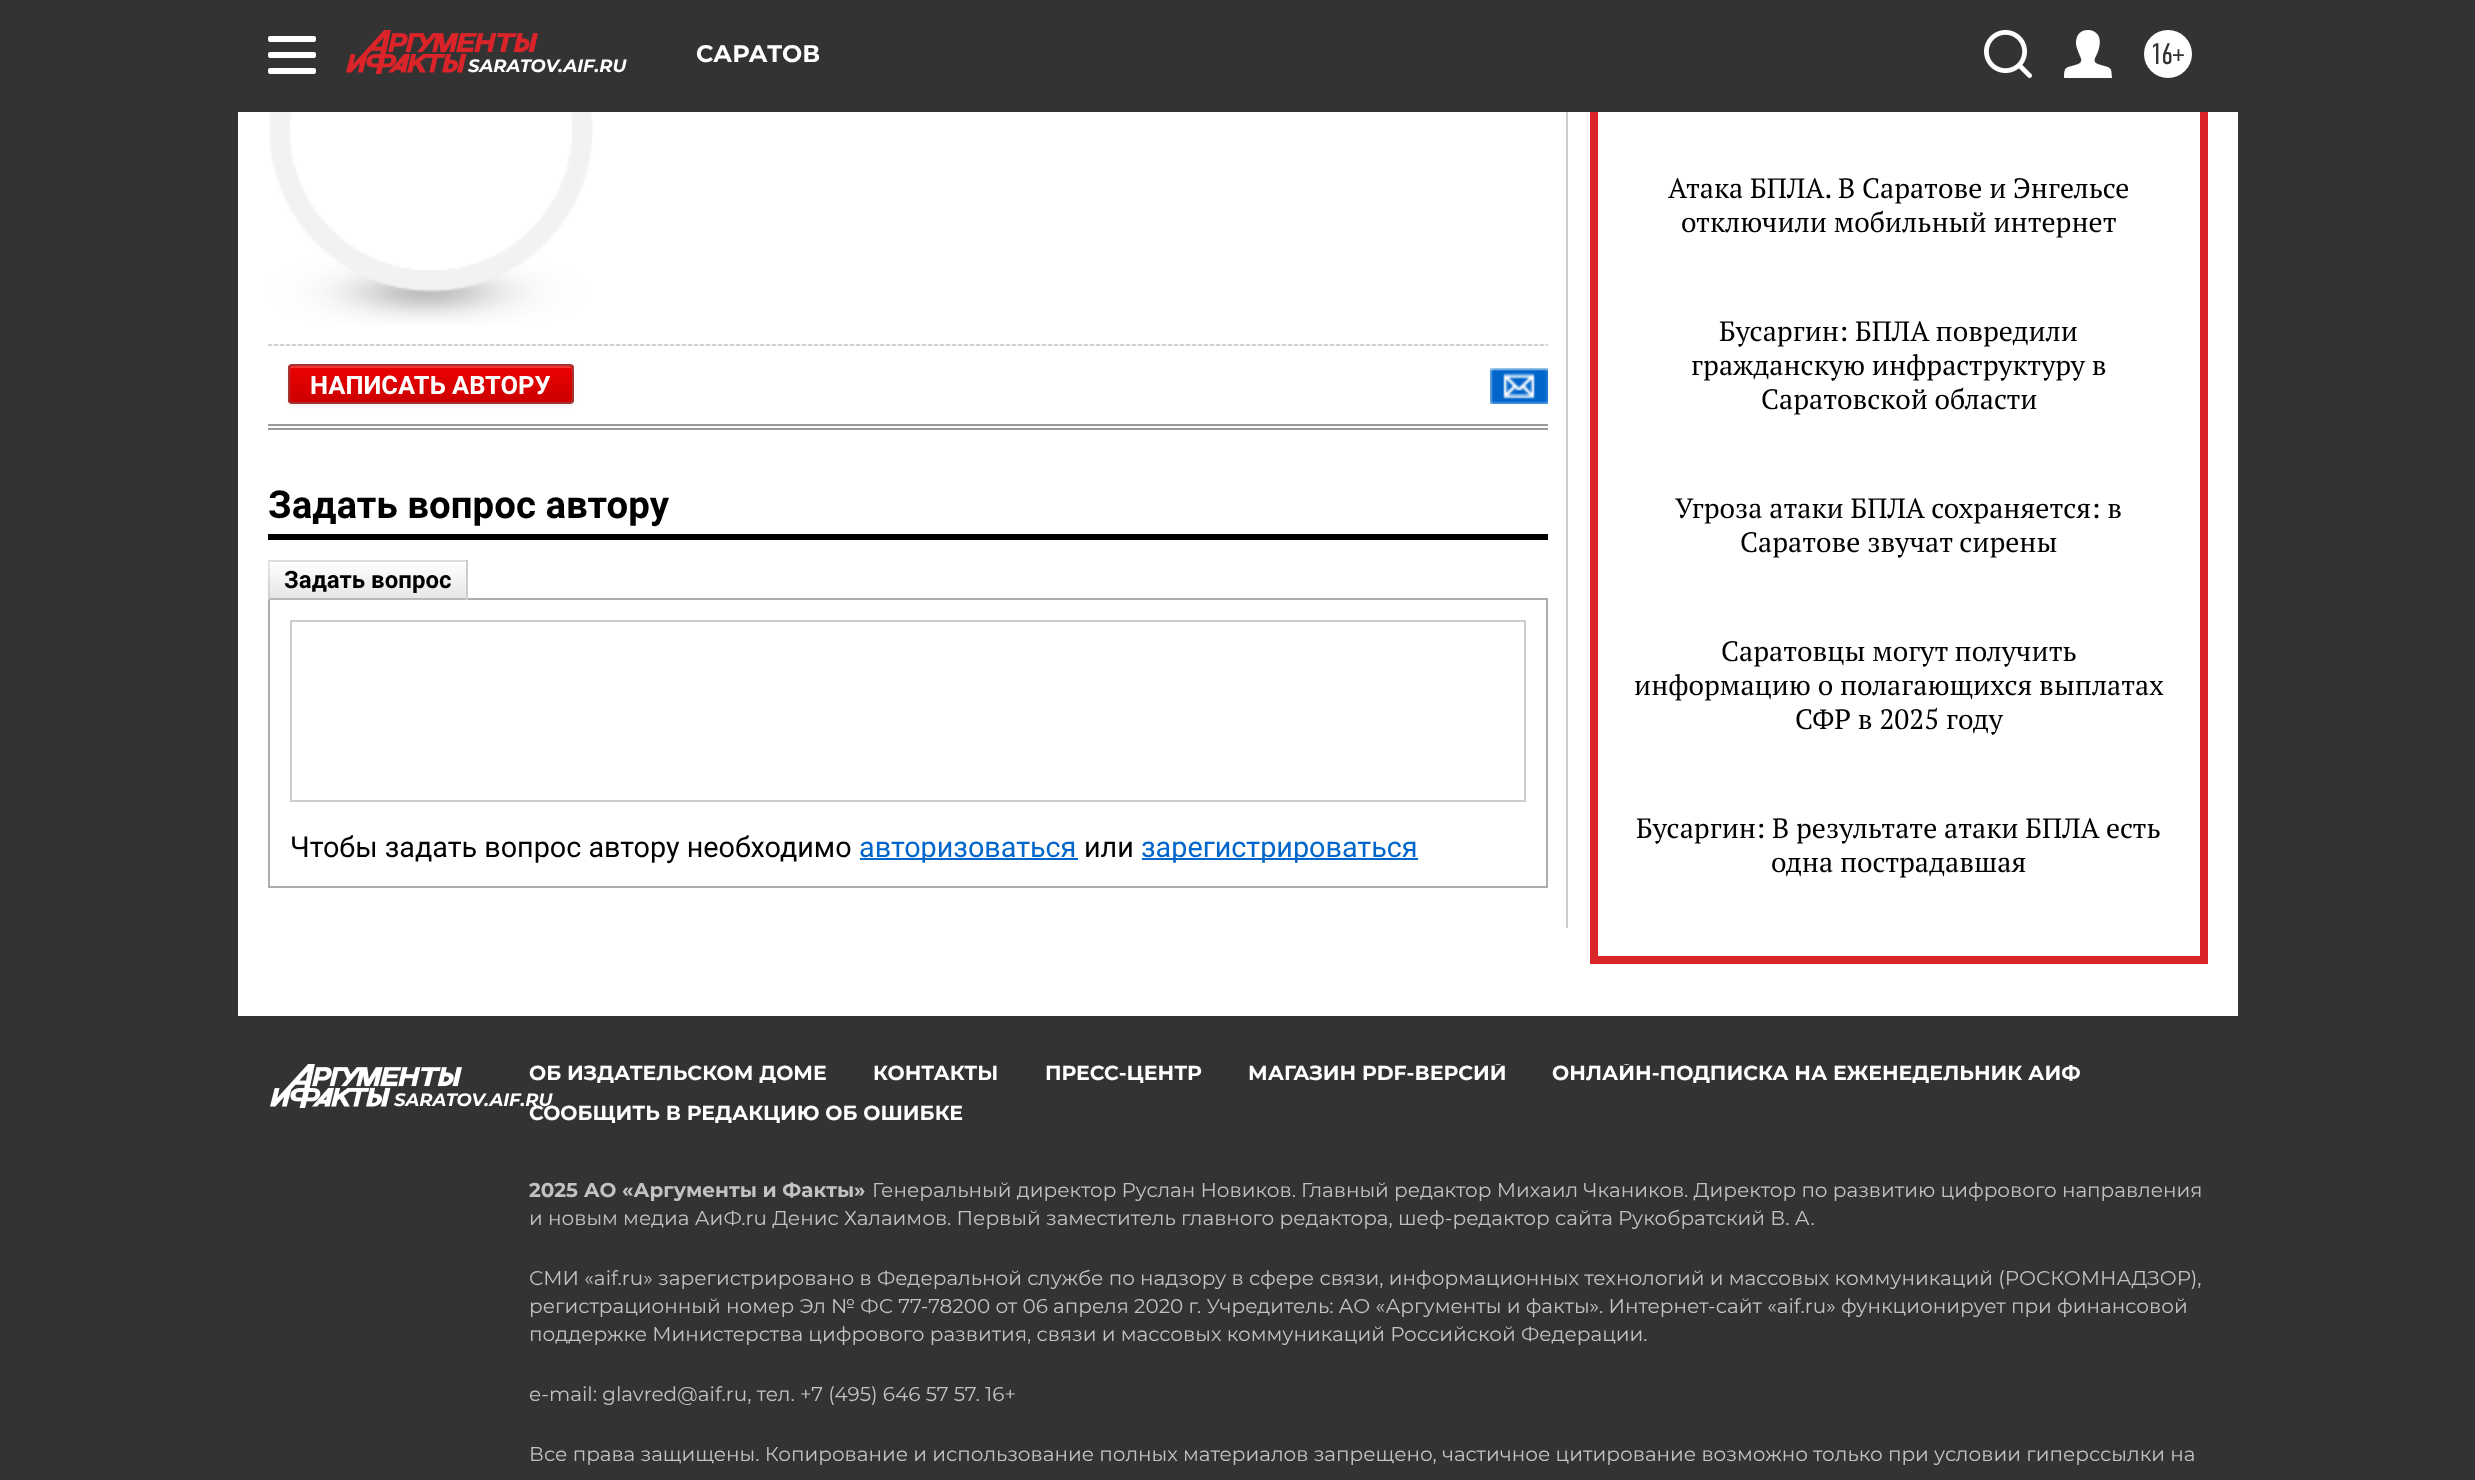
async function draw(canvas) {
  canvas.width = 2475
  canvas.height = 1480
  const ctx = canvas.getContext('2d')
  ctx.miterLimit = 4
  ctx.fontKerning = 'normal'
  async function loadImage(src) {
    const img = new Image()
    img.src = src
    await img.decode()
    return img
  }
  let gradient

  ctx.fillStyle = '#333'
  ctx.fillRect(0, 0, 2475, 1480)
  ctx.fillStyle = '#fff'
  ctx.beginPath()
  ctx.roundRect(268, 36, 48, 6, 2)
  ctx.fill()
  ctx.beginPath()
  ctx.roundRect(268, 52, 48, 6, 2)
  ctx.fill()
  ctx.beginPath()
  ctx.roundRect(268, 68, 48, 6, 2)
  ctx.fill()
  ctx.font = 'bold 24px Montserrat'
  ctx.fillText('САРАТОВ', 696, 62)
  ctx.drawImage(await loadImage('image0.png'), 1984, 30, 48, 48)
  ctx.drawImage(await loadImage('image1.png'), 2064, 30, 48, 48)
  ctx.beginPath()
  ctx.arc(2168, 54, 24, 0, 2 * Math.PI)
  ctx.fill()
  ctx.font = '30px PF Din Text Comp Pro'
  ctx.fillStyle = '#333'
  ctx.fillText('16+', 2150, 64)
  ctx.drawImage(await loadImage('image2.png'), 346, 30, 192, 44)
  ctx.font = 'italic bold 18px Montserrat'
  ctx.fillStyle = '#fff'
  ctx.fillText('SARATOV.AIF.RU', 468, 72)
  ctx.fillRect(238, 112, 2000, 904)
  ctx.fillStyle = '#ccc'
  ctx.fillRect(1566, 112, 2, 816)
  ctx.fillStyle = '#999'
  ctx.fillRect(268, 424, 1280, 2)
  ctx.fillRect(268, 428, 1280, 2)
  ctx.drawImage(await loadImage('image3.png'), 269, 112, 324, 213)
  ctx.drawImage(await loadImage('image4.png'), 268, 344, 1280, 2)
  ctx.fillStyle = '#0000000d'
  ctx.filter = 'blur(2px)'
  ctx.beginPath()
  ctx.roundRect(288, 366, 286, 40, 4)
  ctx.fill()
  ctx.filter = 'none'
  ctx.save()
  ctx.beginPath()
  ctx.roundRect(288, 364, 286, 40, 4)
  ctx.clip()
  gradient = ctx.createLinearGradient(431, 366, 431, 402)
  gradient.addColorStop(0, '#eb0101')
  gradient.addColorStop(1, '#cd0000')
  ctx.fillStyle = gradient
  ctx.fillRect(288, 366, 286, 36)
  ctx.restore()
  ctx.fillStyle = '#ef3434'
  ctx.beginPath()
  ctx.moveTo(292, 368)
  ctx.lineTo(570, 368)
  ctx.bezierCurveTo(571, 368, 572, 369, 572, 370)
  ctx.bezierCurveTo(572, 368, 572, 366, 570, 366)
  ctx.lineTo(292, 366)
  ctx.bezierCurveTo(290, 366, 290, 368, 290, 370)
  ctx.bezierCurveTo(290, 369, 291, 368, 292, 368)
  ctx.closePath()
  ctx.fill()
  ctx.beginPath()
  ctx.roundRect(289, 365, 284, 38, 3)
  ctx.strokeStyle = '#a43332'
  ctx.lineWidth = 2
  ctx.stroke()
  ctx.font = 'bold 25.5px Roboto'
  ctx.fillStyle = '#fff'
  ctx.fillText('НАПИСАТЬ АВТОРУ', 310, 394)
  ctx.drawImage(await loadImage('image5.png'), 1490, 368, 58, 36)
  ctx.fillStyle = '#000'
  ctx.fillRect(268, 534, 1280, 6)
  ctx.font = 'bold 38.4px Roboto'
  ctx.fillText('Задать вопрос автору', 268, 518)
  ctx.strokeStyle = '#adadad'
  ctx.strokeRect(269, 599, 1278, 288)
  ctx.fillStyle = '#ccc'
  ctx.fillRect(466, 560, 2, 40)
  ctx.fillStyle = '#f5f5f5'
  ctx.fillRect(268, 560, 2, 40)
  gradient = ctx.createLinearGradient(368, 562, 368, 598)
  gradient.addColorStop(0, '#fff')
  gradient.addColorStop(1, '#e6e6e6')
  ctx.fillStyle = gradient
  ctx.fillRect(268, 562, 198, 36)
  ctx.fillStyle = '#ddd'
  ctx.beginPath()
  ctx.moveTo(268, 560)
  ctx.lineTo(466, 560)
  ctx.lineTo(466, 562)
  ctx.lineTo(270, 562)
  ctx.closePath()
  ctx.fill()
  ctx.fillStyle = '#b8b8b8'
  ctx.beginPath()
  ctx.moveTo(466, 600)
  ctx.lineTo(268, 600)
  ctx.lineTo(270, 598)
  ctx.lineTo(466, 598)
  ctx.closePath()
  ctx.fill()
  ctx.fillStyle = '#0000001a'
  ctx.beginPath()
  ctx.moveTo(268, 600)
  ctx.lineTo(268, 560)
  ctx.lineTo(270, 562)
  ctx.lineTo(270, 598)
  ctx.closePath()
  ctx.fill()
  ctx.font = 'bold 24px Roboto'
  ctx.fillStyle = '#000'
  ctx.fillText('Задать вопрос', 284, 588)
  ctx.strokeStyle = '#ccc'
  ctx.strokeRect(291, 621, 1234, 180)
  ctx.font = '28.75px Roboto'
  ctx.fillText('Чтобы задать вопрос автору необходимо', 290, 857)
  ctx.fillStyle = '#06c'
  ctx.fillRect(860, 858, 218, 2)
  ctx.fillText('авторизоваться', 859, 857)
  ctx.fillStyle = '#000'
  ctx.fillText('или', 1084, 857)
  ctx.fillStyle = '#06c'
  ctx.fillRect(1142, 858, 276, 2)
  ctx.fillText('зарегистрироваться', 1141, 857)
  ctx.fillStyle = '#da2429'
  ctx.fillRect(2200, 112, 8, 852)
  ctx.fillRect(1590, 956, 618, 8)
  ctx.fillRect(1590, 112, 8, 852)
  ctx.font = '28px PT Serif'
  ctx.fillStyle = '#000'
  ctx.fillText('Атака БПЛА. В Саратове и Энгельсе', 1668, 198)
  ctx.fillText('отключили мобильный интернет', 1681, 232)
  ctx.fillText('Бусаргин: БПЛА повредили', 1719, 341)
  ctx.fillText('гражданскую инфраструктуру в', 1691, 375)
  ctx.fillText('Саратовской области', 1761, 409)
  ctx.fillText('Угроза атаки БПЛА сохраняется: в', 1675, 518)
  ctx.fillText('Саратове звучат сирены', 1740, 552)
  ctx.fillText('Саратовцы могут получить', 1721, 661)
  ctx.fillText('информацию о полагающихся выплатах', 1634, 695)
  ctx.fillText('СФР в 2025 году', 1795, 729)
  ctx.fillText('Бусаргин: В результате атаки БПЛА есть', 1636, 838)
  ctx.fillText('одна пострадавшая', 1771, 872)
  ctx.drawImage(await loadImage('image6.png'), 270, 1064, 192, 44)
  ctx.font = 'italic bold 18px Montserrat'
  ctx.fillStyle = '#fff'
  ctx.fillText('SARATOV.AIF.RU', 394, 1106)
  ctx.font = 'bold 20.4px Montserrat'
  ctx.fillText('ОБ ИЗДАТЕЛЬСКОМ ДОМЕ', 529, 1080)
  ctx.fillText('КОНТАКТЫ', 873, 1080)
  ctx.fillText('ПРЕСС-ЦЕНТР', 1045, 1080)
  ctx.save()
  ctx.beginPath()
  ctx.rect(530, 1064, 1676, 80)
  ctx.clip()
  ctx.fillText('МАГАЗИН PDF-ВЕРСИЙ', 1248, 1080)
  ctx.fillText('ОНЛАЙН-ПОДПИСКА НА ЕЖЕНЕДЕЛЬНИК АИФ', 1552, 1080)
  ctx.restore()
  ctx.fillText('СООБЩИТЬ В РЕДАКЦИЮ ОБ ОШИБКЕ', 529, 1120)
  ctx.font = 'bold 20px Montserrat'
  ctx.fillStyle = '#c2c2c2'
  ctx.fillText('2025 АО «Аргументы и Факты»', 529, 1197)
  ctx.font = '20px Montserrat'
  ctx.fillText('Генеральный директор Руслан Новиков. Главный редактор Михаил Чкаников. Директор по развитию цифрового направления', 872, 1197)
  ctx.fillText('и новым медиа АиФ.ru Денис Халаимов. Первый заместитель главного редактора, шеф-редактор сайта Рукобратский В. А.', 529, 1225)
  ctx.fillText('СМИ «aif.ru» зарегистрировано в Федеральной службе по надзору в сфере связи, информационных технологий и массовых коммуникаций (РОСКОМНАДЗОР),', 529, 1285)
  ctx.fillText('регистрационный номер Эл № ФС 77-78200 от 06 апреля 2020 г. Учредитель: АО «Аргументы и факты». Интернет-сайт «aif.ru» функционирует при финансовой', 529, 1313)
  ctx.fillText('поддержке Министерства цифрового развития, связи и массовых коммуникаций Российской Федерации.', 529, 1341)
  ctx.fillText('e-mail: glavred@aif.ru, тел. +7 (495) 646 57 57. 16+', 529, 1401)
  ctx.fillText('Все права защищены. Копирование и использование полных материалов запрещено, частичное цитирование возможно только при условии гиперссылки на', 529, 1461)
}

draw(document.querySelector('canvas'))
